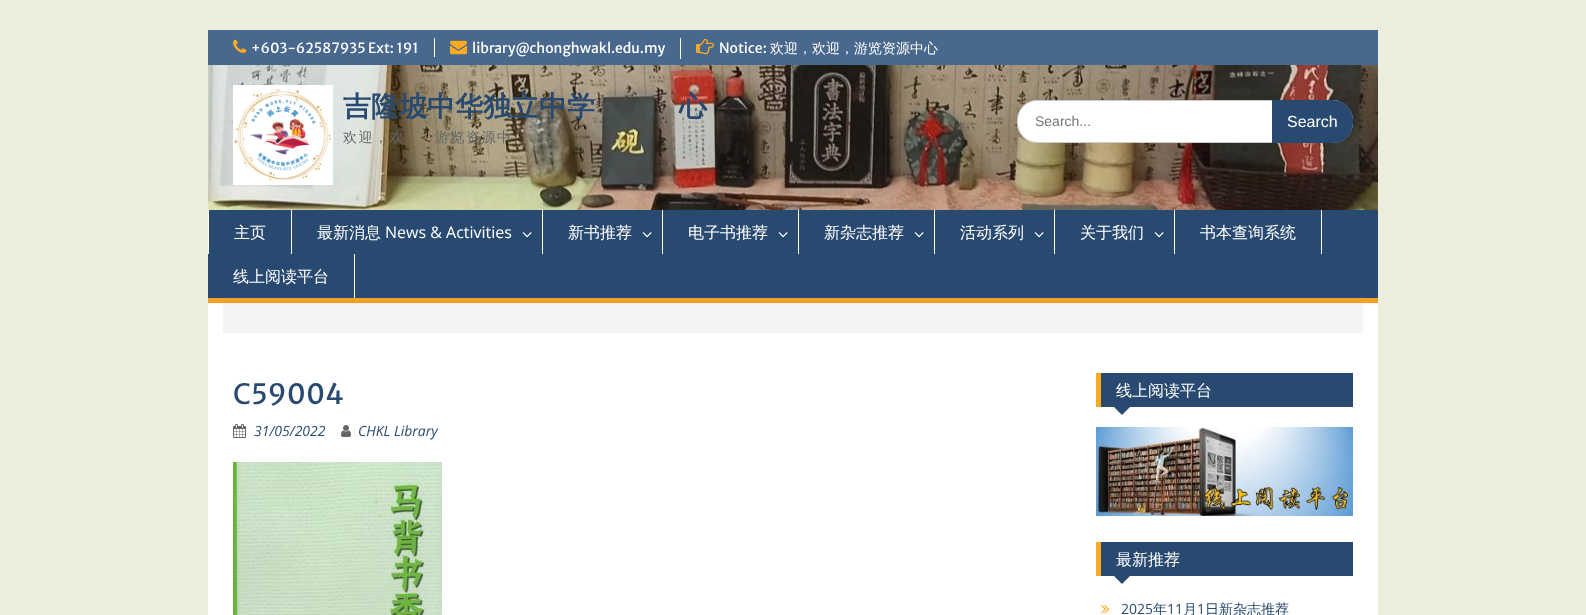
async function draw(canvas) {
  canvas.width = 1586
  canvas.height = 615
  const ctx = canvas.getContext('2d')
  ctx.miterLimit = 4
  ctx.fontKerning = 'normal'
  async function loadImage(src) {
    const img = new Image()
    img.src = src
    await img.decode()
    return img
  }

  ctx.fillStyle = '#ededdc'
  ctx.fillRect(0, 0, 1586, 615)
  ctx.fillStyle = '#fff'
  ctx.fillRect(208, 303, 1170, 312)
  ctx.fillStyle = '#49688e'
  ctx.fillRect(208, 30, 1170, 35)
  ctx.drawImage(await loadImage('image0.png'), 233, 39, 14, 14)
  ctx.font = '14px Merriweather Sans'
  ctx.fillStyle = '#fff'
  ctx.fillText('+603-62587935 Ext: 191', 251, 53)
  ctx.fillRect(434, 38, 1, 19)
  ctx.drawImage(await loadImage('image1.png'), 450, 40, 17, 15)
  ctx.fillText('library@chonghwakl.edu.my', 472, 53)
  ctx.fillRect(680, 38, 1, 21)
  ctx.drawImage(await loadImage('image2.png'), 696, 38, 18, 17)
  ctx.fillText('Notice:', 719, 53)
  ctx.font = '500 14px WenQuanYi Zen Hei'
  ctx.fillText('欢迎，欢迎，游览资源中心', 770, 53)
  ctx.drawImage(await loadImage('image3.png'), 208, 65, 1170, 145)
  ctx.drawImage(await loadImage('image4.png'), 233, 85, 100, 100)
  ctx.font = 'bold 28px WenQuanYi Zen Hei'
  ctx.fillStyle = '#294a70'
  ctx.fillText('吉隆坡中华独立中学', 343, 116)
  ctx.fillText('心', 679, 116)
  ctx.letterSpacing = '1.5px'
  ctx.font = '500 14px WenQuanYi Zen Hei'
  ctx.fillStyle = '#666'
  ctx.fillText('欢迎，欢', 343, 142)
  ctx.fillText('游览资源中', 435, 142)
  ctx.fillStyle = '#fff'
  ctx.beginPath()
  ctx.roundRect(1017.5, 100.5, 335, 42, 19.5)
  ctx.fill()
  ctx.strokeStyle = '#ccc'
  ctx.stroke()
  ctx.letterSpacing = '0px'
  ctx.font = '14px Liberation Sans'
  ctx.fillStyle = '#757575'
  ctx.fillText('Search...', 1035, 126)
  ctx.fillStyle = '#294a70'
  ctx.beginPath()
  ctx.roundRect(1272, 100, 81, 43, [0, 20, 20, 0])
  ctx.fill()
  ctx.font = '16px Liberation Sans'
  ctx.fillStyle = '#fff'
  ctx.fillText('Search', 1287, 127)
  ctx.fillStyle = '#294a70'
  ctx.fillRect(208, 210, 1170, 88)
  ctx.fillStyle = '#f4a024'
  ctx.fillRect(208, 298, 1170, 5)
  ctx.fillStyle = '#fff'
  ctx.fillRect(291, 210, 1, 44)
  ctx.fillRect(208, 210, 1, 44)
  ctx.font = '500 16px WenQuanYi Zen Hei'
  ctx.fillText('主页', 234, 238)
  ctx.fillRect(542, 210, 1, 44)
  ctx.fillText('最新消息', 317, 238)
  ctx.font = '16px Open Sans'
  ctx.fillText('News & Activities', 385, 238)
  ctx.drawImage(await loadImage('image5.png'), 522, 232, 10, 6)
  ctx.fillRect(662, 210, 1, 44)
  ctx.font = '500 16px WenQuanYi Zen Hei'
  ctx.fillText('新书推荐', 568, 238)
  ctx.drawImage(await loadImage('image5.png'), 642, 232, 10, 6)
  ctx.fillRect(798, 210, 1, 44)
  ctx.fillText('电子书推荐', 688, 238)
  ctx.drawImage(await loadImage('image5.png'), 778, 232, 10, 6)
  ctx.fillRect(934, 210, 1, 44)
  ctx.fillText('新杂志推荐', 824, 238)
  ctx.drawImage(await loadImage('image5.png'), 914, 232, 10, 6)
  ctx.fillRect(1054, 210, 1, 44)
  ctx.fillText('活动系列', 960, 238)
  ctx.drawImage(await loadImage('image5.png'), 1034, 232, 10, 6)
  ctx.fillRect(1174, 210, 1, 44)
  ctx.fillText('关于我们', 1080, 238)
  ctx.drawImage(await loadImage('image5.png'), 1154, 232, 10, 6)
  ctx.fillRect(1321, 210, 1, 44)
  ctx.fillText('书本查询系统', 1200, 238)
  ctx.fillRect(354, 254, 1, 44)
  ctx.fillText('线上阅读平台', 233, 282)
  ctx.fillStyle = '#f4f4f4'
  ctx.fillRect(223, 303, 1140, 30)
  ctx.font = '28px Merriweather Sans'
  ctx.fillStyle = '#294a70'
  ctx.fillText('C59004', 233, 404)
  ctx.drawImage(await loadImage('image6.png'), 233, 424, 13, 14)
  ctx.font = 'italic 14px Open Sans'
  ctx.fillText('31/05/2022', 254, 436)
  ctx.drawImage(await loadImage('image7.png'), 341, 425, 10, 12)
  ctx.fillText('CHKL Library', 358, 436)
  ctx.drawImage(await loadImage('image8.png'), 233, 462, 209, 153)
  ctx.fillRect(1101, 373, 252, 34)
  ctx.fillStyle = '#ffab1f'
  ctx.fillRect(1096, 373, 5, 34)
  ctx.font = '500 16px WenQuanYi Zen Hei'
  ctx.fillStyle = '#fff'
  ctx.fillText('线上阅读平台', 1116, 396)
  ctx.fillStyle = '#294a70'
  ctx.beginPath()
  ctx.moveTo(1113, 406)
  ctx.lineTo(1131, 406)
  ctx.lineTo(1122, 415)
  ctx.closePath()
  ctx.fill()
  ctx.drawImage(await loadImage('image9.png'), 1096, 427, 257, 89)
  ctx.fillRect(1101, 542, 252, 34)
  ctx.fillStyle = '#ffab1f'
  ctx.fillRect(1096, 542, 5, 34)
  ctx.fillStyle = '#fff'
  ctx.fillText('最新推荐', 1116, 565)
  ctx.fillStyle = '#294a70'
  ctx.beginPath()
  ctx.moveTo(1113, 575)
  ctx.lineTo(1131, 575)
  ctx.lineTo(1122, 584)
  ctx.closePath()
  ctx.fill()
  ctx.drawImage(await loadImage('image10.png'), 1101, 605, 9, 9)
  ctx.font = '14px Open Sans'
  ctx.fillText('2025', 1121, 614)
  ctx.font = '500 14px WenQuanYi Zen Hei'
  ctx.fillText('年', 1153, 614)
  ctx.font = '14px Open Sans'
  ctx.fillText('11', 1167, 614)
  ctx.font = '500 14px WenQuanYi Zen Hei'
  ctx.fillText('月', 1183, 614)
  ctx.font = '14px Open Sans'
  ctx.fillText('1', 1197, 614)
  ctx.font = '500 14px WenQuanYi Zen Hei'
  ctx.fillText('日新杂志推荐', 1205, 614)
}

draw(document.querySelector('canvas'))
